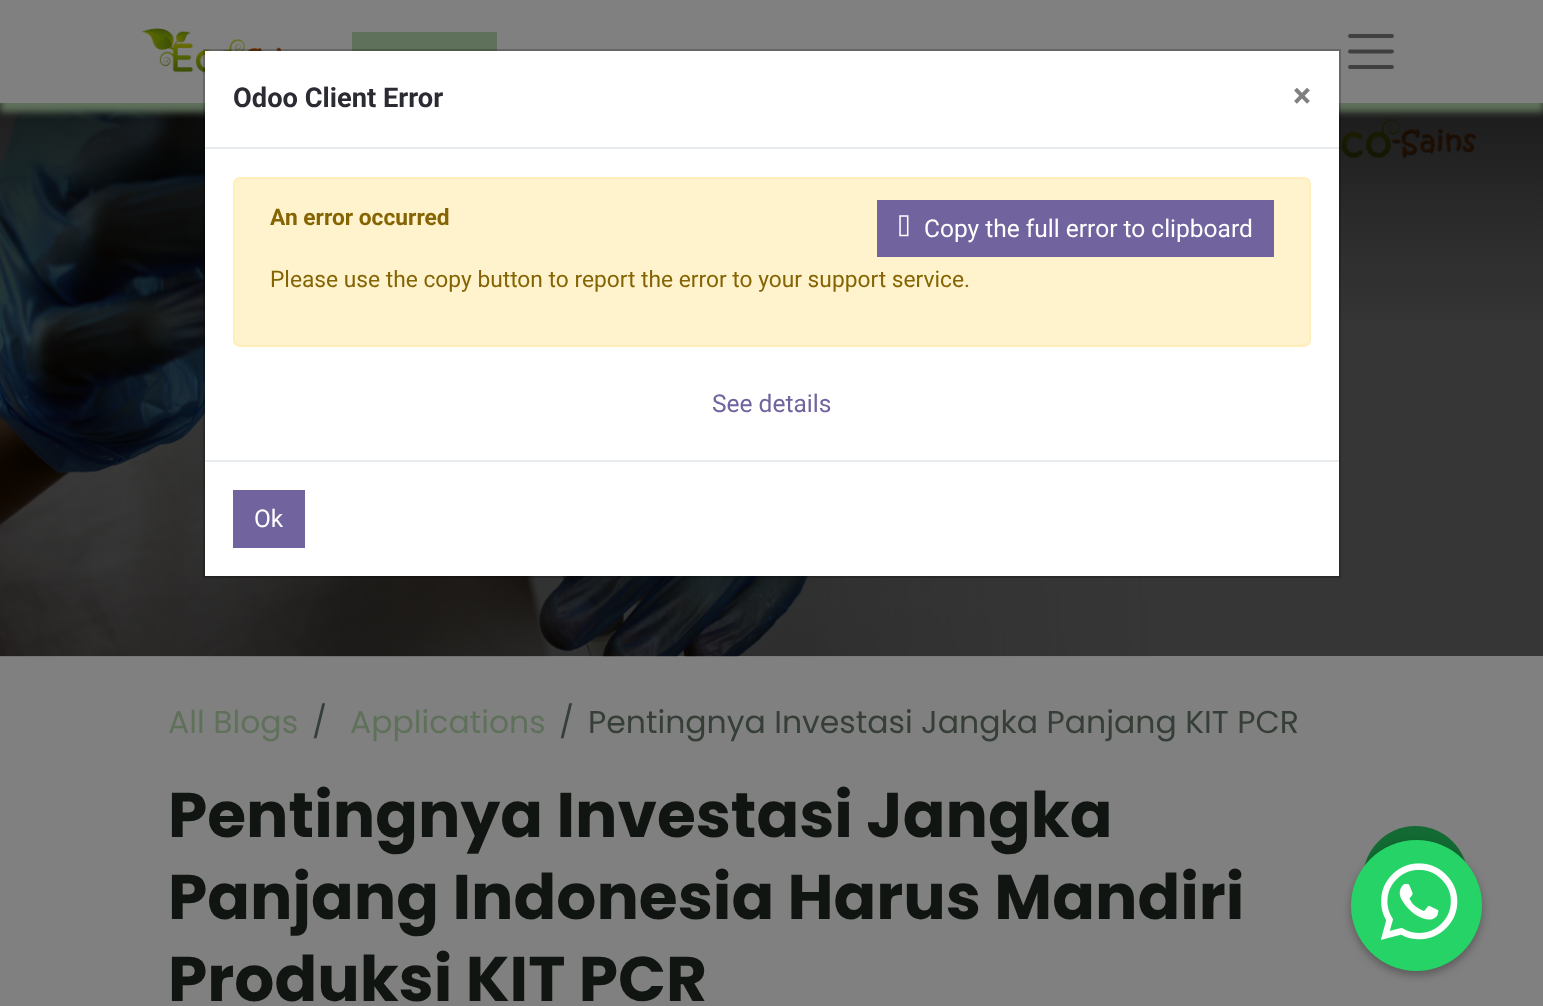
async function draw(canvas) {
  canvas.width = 1543
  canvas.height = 1006
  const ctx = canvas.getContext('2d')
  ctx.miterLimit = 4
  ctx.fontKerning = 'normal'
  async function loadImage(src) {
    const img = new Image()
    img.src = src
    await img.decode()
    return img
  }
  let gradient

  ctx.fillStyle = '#808080'
  ctx.fillRect(0, 0, 1543, 1006)
  ctx.drawImage(await loadImage('image2.png'), 0, 103, 1543, 554)
  gradient = ctx.createLinearGradient(772, 103, 772, 380)
  gradient.addColorStop(0, '#00000080')
  gradient.addColorStop(0.19, '#0000005e')
  gradient.addColorStop(0.34, '#00000045')
  gradient.addColorStop(0.47, '#00000030')
  gradient.addColorStop(0.56, '#00000024')
  gradient.addColorStop(0.65, '#0000001a')
  gradient.addColorStop(0.73, '#0000000f')
  gradient.addColorStop(0.8, '#0000000a')
  gradient.addColorStop(0.86, '#00000005')
  gradient.addColorStop(0.91, '#00000003')
  gradient.addColorStop(0.95, '#00000000')
  gradient.addColorStop(0.98, '#00000000')
  gradient.addColorStop(1, '#00000000')
  ctx.fillStyle = gradient
  ctx.fillRect(0, 103, 1543, 217)
  ctx.save()
  ctx.beginPath()
  ctx.rect(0, 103, 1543, 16)
  ctx.clip()
  ctx.fillStyle = '#60715b'
  ctx.filter = 'blur(3.5px)'
  ctx.beginPath()
  ctx.rect(0, 9, 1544, 103)
  ctx.fill()
  ctx.filter = 'none'
  ctx.restore()
  ctx.drawImage(await loadImage('image1.png'), 141, 28, 165, 45)
  ctx.fillStyle = '#fff'
  ctx.fillRect(205, 51, 1134, 525)
  ctx.fillStyle = '#60715b'
  ctx.fillRect(352, 32, 145, 19)
  ctx.strokeStyle = '#00000033'
  ctx.lineWidth = 2
  ctx.strokeRect(204, 50, 1136, 527)
  ctx.fillStyle = '#e9ecef'
  ctx.fillRect(205, 147, 1134, 2)
  ctx.font = 'bold 27.25px Roboto'
  ctx.fillStyle = '#2b2b33'
  ctx.fillText('Odoo Client Error', 233, 107)
  ctx.font = 'bold 34px Roboto'
  ctx.fillStyle = '#808080'
  ctx.fillText('×', 1293, 107)
  ctx.fillStyle = '#fff3cd'
  ctx.beginPath()
  ctx.roundRect(234, 178, 1076, 168, 6)
  ctx.fill()
  ctx.strokeStyle = '#ffeeba'
  ctx.stroke()
  ctx.font = 'bold 22.75px Roboto'
  ctx.fillStyle = '#856404'
  ctx.fillText('An error occurred', 270, 225)
  ctx.fillStyle = '#71639e'
  ctx.fillRect(877, 200, 397, 57)
  ctx.drawImage(await loadImage('image0.png'), 899, 215, 10, 22)
  ctx.font = '24.5px Roboto'
  ctx.fillStyle = '#fff'
  ctx.fillText('Copy the full error to clipboard', 924, 237)
  ctx.font = '22.75px Roboto'
  ctx.fillStyle = '#856404'
  ctx.fillText('Please use the copy button to report the error to your support service.', 270, 287)
  ctx.font = '24.5px Roboto'
  ctx.fillStyle = '#71639e'
  ctx.fillText('See details', 712, 412)
  ctx.fillStyle = '#e9ecef'
  ctx.fillRect(205, 460, 1134, 2)
  ctx.fillStyle = '#71639e'
  ctx.fillRect(233, 490, 72, 58)
  ctx.fillStyle = '#fff'
  ctx.fillText('Ok', 254, 527)
  ctx.beginPath()
  ctx.moveTo(1350, 36)
  ctx.lineTo(1392, 36)
  ctx.moveTo(1350, 51.5)
  ctx.lineTo(1392, 51.5)
  ctx.moveTo(1350, 67)
  ctx.lineTo(1392, 67)
  ctx.strokeStyle = '#404040'
  ctx.lineWidth = 3.8
  ctx.lineCap = 'round'
  ctx.stroke()
  ctx.font = '31.5px Poppins'
  ctx.fillStyle = '#60715b'
  ctx.fillText('All Blogs', 168, 733)
  ctx.fillStyle = '#363f37'
  ctx.fillText('/', 312, 733)
  ctx.fillStyle = '#60715b'
  ctx.fillText('Applications', 350, 733)
  ctx.fillStyle = '#363f37'
  ctx.fillText('/', 559, 733)
  ctx.fillText('Pentingnya Investasi Jangka Panjang KIT PCR', 588, 733)
  ctx.font = 'bold 63px Poppins'
  ctx.fillStyle = '#111511'
  ctx.fillText('Pentingnya Investasi Jangka', 168, 837)
  ctx.fillText('Panjang Indonesia Harus Mandiri', 168, 919)
  ctx.fillText('Produksi KIT PCR', 168, 1001)
  ctx.fillStyle = '#136a33'
  ctx.beginPath()
  ctx.arc(1415.5, 878.5, 52.5, 0, 2 * Math.PI)
  ctx.fill()
  ctx.fillStyle = '#0000004d'
  ctx.filter = 'blur(4.5px)'
  ctx.beginPath()
  ctx.roundRect(1351, 844, 131, 131, 65.5)
  ctx.fill()
  ctx.filter = 'none'
  ctx.fillStyle = '#25d366'
  ctx.beginPath()
  ctx.arc(1416.5, 905.5, 65.5, 0, 2 * Math.PI)
  ctx.fill()
  ctx.drawImage(await loadImage('image3.png'), 1380, 863, 78, 77)
}

draw(document.querySelector('canvas'))
